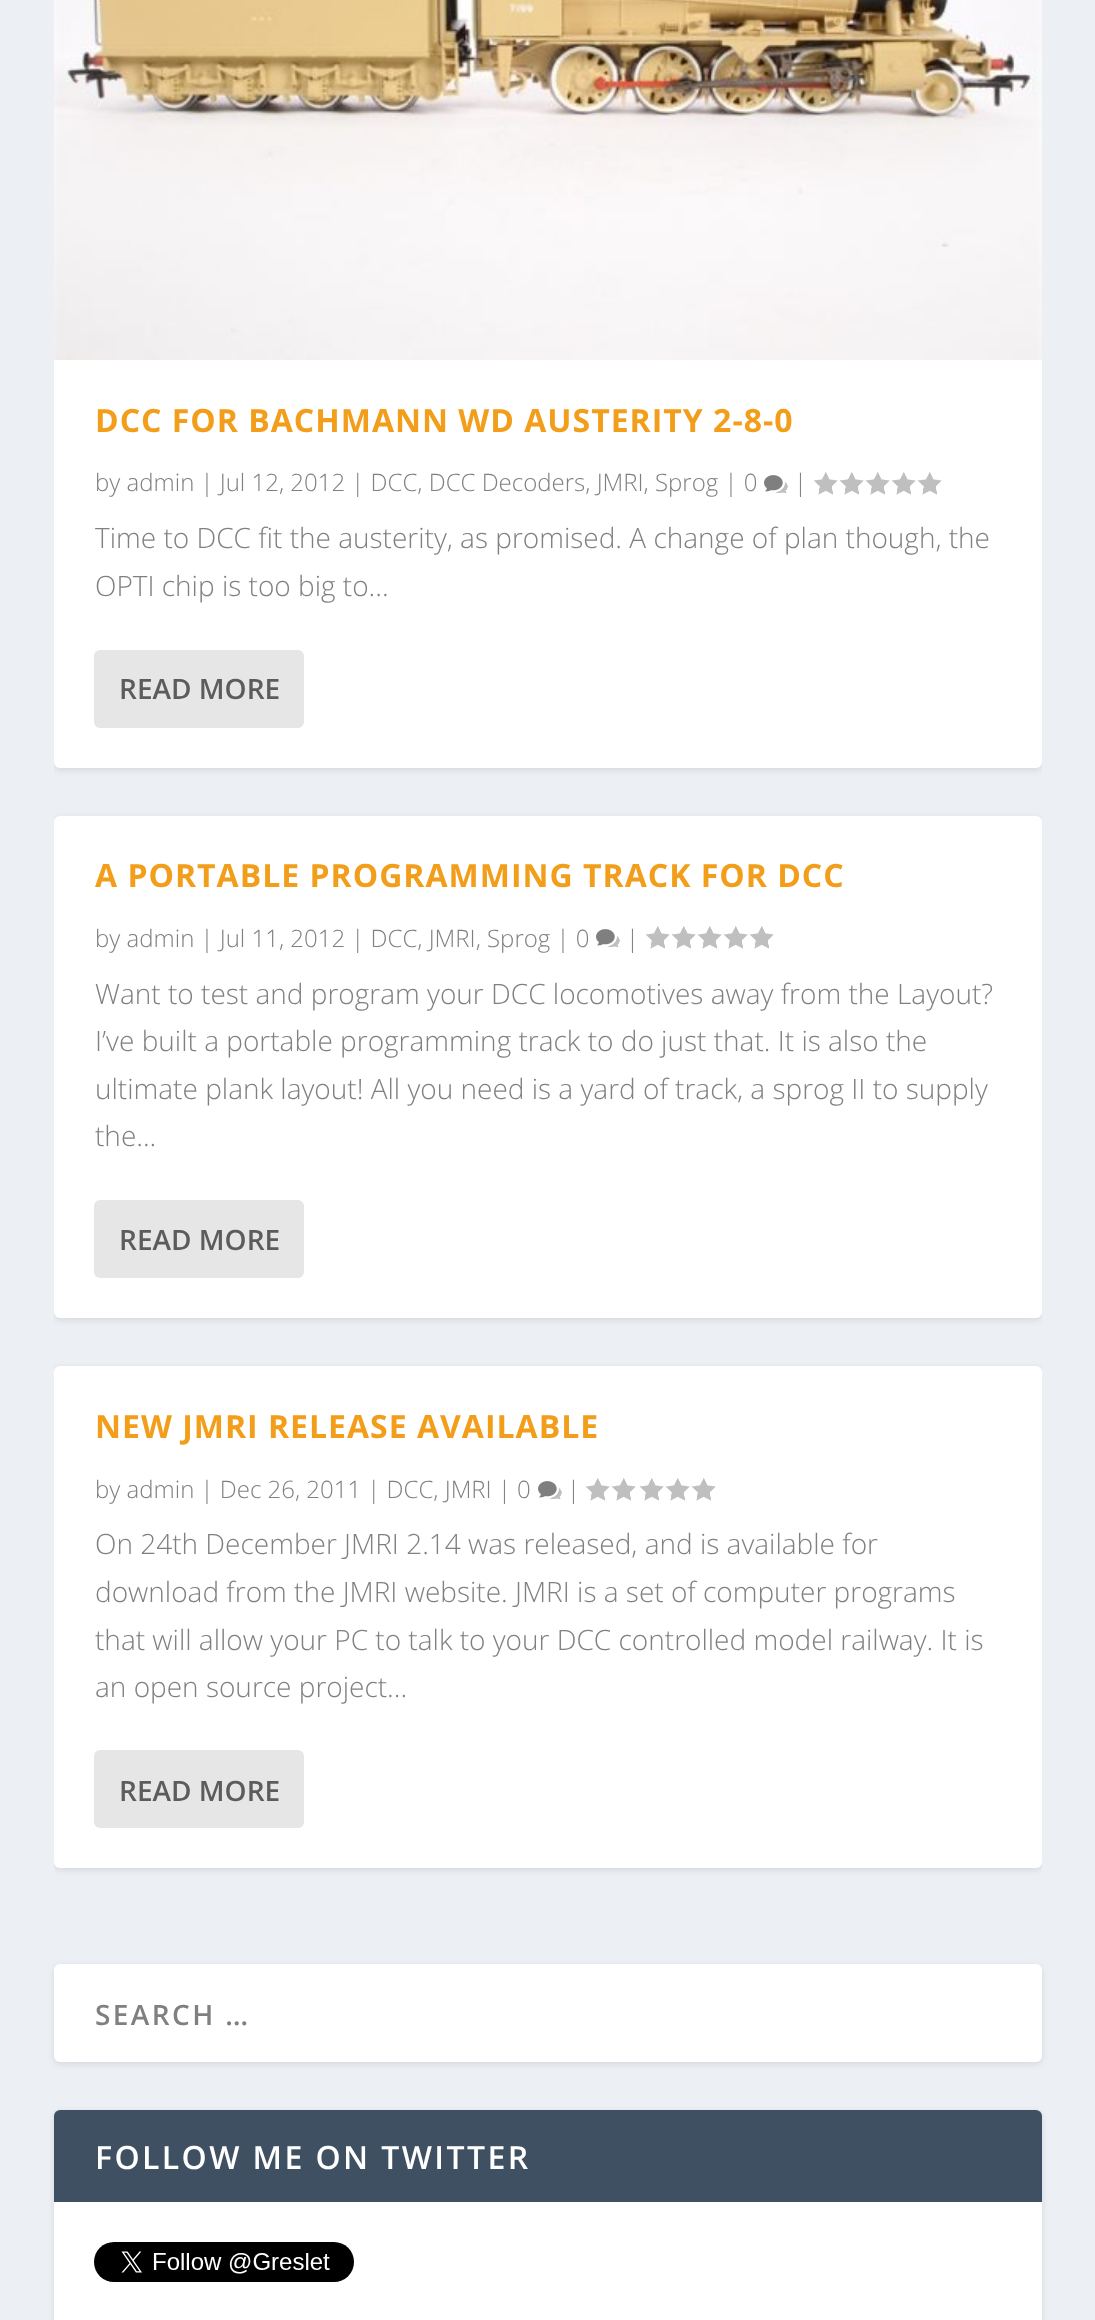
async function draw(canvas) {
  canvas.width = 1095
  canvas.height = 2320
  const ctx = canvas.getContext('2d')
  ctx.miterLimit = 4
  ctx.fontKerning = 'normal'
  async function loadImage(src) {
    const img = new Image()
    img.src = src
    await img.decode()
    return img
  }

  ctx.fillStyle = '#ecf0f5'
  ctx.fillRect(0, 0, 1095, 2320)
  ctx.save()
  ctx.beginPath()
  ctx.roundRect(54, -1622, 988, 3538, 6)
  ctx.clip()
  ctx.fillStyle = '#0000001a'
  ctx.filter = 'blur(3px)'
  ctx.beginPath()
  ctx.roundRect(54, -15, 988, 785, 6)
  ctx.fill()
  ctx.filter = 'none'
  ctx.restore()
  ctx.fillStyle = '#fff'
  ctx.beginPath()
  ctx.roundRect(54, -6, 988, 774, 6)
  ctx.fill()
  ctx.drawImage(await loadImage('image0.png'), 54, 0, 988, 360)
  ctx.letterSpacing = '1px'
  ctx.font = 'bold 32px Open Sans'
  ctx.fillStyle = '#f29e1a'
  ctx.fillText('DCC FOR BACHMANN WD AUSTERITY 2-8-0', 95, 432)
  ctx.letterSpacing = '0px'
  ctx.font = '300 24px Open Sans'
  ctx.fillStyle = '#808080'
  ctx.fillText('by admin | Jul 12, 2012 | DCC, DCC Decoders, JMRI, Sprog | 0', 95, 491)
  ctx.drawImage(await loadImage('image1.png'), 764, 475, 24, 18)
  ctx.fillText('|', 794, 491)
  ctx.drawImage(await loadImage('image2.png'), 814, 472, 24, 23)
  ctx.drawImage(await loadImage('image2.png'), 840, 472, 24, 23)
  ctx.drawImage(await loadImage('image2.png'), 866, 472, 24, 23)
  ctx.drawImage(await loadImage('image2.png'), 892, 472, 24, 23)
  ctx.drawImage(await loadImage('image2.png'), 918, 472, 24, 23)
  ctx.font = '300 28px Open Sans'
  ctx.fillText('Time to DCC fit the austerity, as promised. A change of plan though, the', 95, 548)
  ctx.fillText('OPTI chip is too big to...', 95, 596)
  ctx.fillStyle = '#e6e6e6'
  ctx.beginPath()
  ctx.roundRect(94, 650, 210, 78, 6)
  ctx.fill()
  ctx.font = '600 28px Open Sans'
  ctx.fillStyle = '#5c5c5c'
  ctx.fillText('READ MORE', 119, 699)
  ctx.save()
  ctx.beginPath()
  ctx.roundRect(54, -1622, 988, 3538, 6)
  ctx.clip()
  ctx.fillStyle = '#0000001a'
  ctx.filter = 'blur(3px)'
  ctx.beginPath()
  ctx.roundRect(54, 818, 988, 502, 6)
  ctx.fill()
  ctx.filter = 'none'
  ctx.restore()
  ctx.fillStyle = '#fff'
  ctx.beginPath()
  ctx.roundRect(54, 816, 988, 502, 6)
  ctx.fill()
  ctx.letterSpacing = '1px'
  ctx.font = 'bold 32px Open Sans'
  ctx.fillStyle = '#f29e1a'
  ctx.fillText('A PORTABLE PROGRAMMING TRACK FOR DCC', 95, 887)
  ctx.letterSpacing = '0px'
  ctx.font = '300 24px Open Sans'
  ctx.fillStyle = '#808080'
  ctx.fillText('by admin | Jul 11, 2012 | DCC, JMRI, Sprog | 0', 95, 947)
  ctx.drawImage(await loadImage('image1.png'), 596, 929, 24, 18)
  ctx.fillText('|', 626, 947)
  ctx.drawImage(await loadImage('image2.png'), 646, 926, 24, 23)
  ctx.drawImage(await loadImage('image2.png'), 672, 926, 24, 23)
  ctx.drawImage(await loadImage('image2.png'), 698, 926, 24, 23)
  ctx.drawImage(await loadImage('image2.png'), 724, 926, 24, 23)
  ctx.drawImage(await loadImage('image2.png'), 750, 926, 24, 23)
  ctx.font = '300 28px Open Sans'
  ctx.fillText('Want to test and program your DCC locomotives away from the Layout?', 95, 1004)
  ctx.fillText('I’ve built a portable programming track to do just that. It is also the', 95, 1051)
  ctx.fillText('ultimate plank layout! All you need is a yard of track, a sprog II to supply', 95, 1099)
  ctx.fillText('the...', 95, 1146)
  ctx.fillStyle = '#e6e6e6'
  ctx.beginPath()
  ctx.roundRect(94, 1200, 210, 78, 6)
  ctx.fill()
  ctx.font = '600 28px Open Sans'
  ctx.fillStyle = '#5c5c5c'
  ctx.fillText('READ MORE', 119, 1250)
  ctx.save()
  ctx.beginPath()
  ctx.roundRect(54, -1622, 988, 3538, 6)
  ctx.clip()
  ctx.fillStyle = '#0000001a'
  ctx.filter = 'blur(3px)'
  ctx.beginPath()
  ctx.roundRect(54, 1368, 988, 502, 6)
  ctx.fill()
  ctx.filter = 'none'
  ctx.restore()
  ctx.fillStyle = '#fff'
  ctx.beginPath()
  ctx.roundRect(54, 1366, 988, 502, 6)
  ctx.fill()
  ctx.letterSpacing = '1px'
  ctx.font = 'bold 32px Open Sans'
  ctx.fillStyle = '#f29e1a'
  ctx.fillText('NEW JMRI RELEASE AVAILABLE', 95, 1438)
  ctx.letterSpacing = '0px'
  ctx.font = '300 24px Open Sans'
  ctx.fillStyle = '#808080'
  ctx.fillText('by admin | Dec 26, 2011 | DCC, JMRI | 0', 95, 1498)
  ctx.drawImage(await loadImage('image1.png'), 538, 1481, 24, 18)
  ctx.fillText('|', 567, 1498)
  ctx.drawImage(await loadImage('image2.png'), 586, 1478, 24, 23)
  ctx.drawImage(await loadImage('image2.png'), 612, 1478, 24, 23)
  ctx.drawImage(await loadImage('image2.png'), 640, 1478, 24, 23)
  ctx.drawImage(await loadImage('image2.png'), 666, 1478, 24, 23)
  ctx.drawImage(await loadImage('image2.png'), 692, 1478, 24, 23)
  ctx.font = '300 28px Open Sans'
  ctx.fillText('On 24th December JMRI 2.14 was released, and is available for', 95, 1554)
  ctx.fillText('download from the JMRI website. JMRI is a set of computer programs', 95, 1602)
  ctx.fillText('that will allow your PC to talk to your DCC controlled model railway. It is', 95, 1650)
  ctx.fillText('an open source project...', 95, 1697)
  ctx.fillStyle = '#e6e6e6'
  ctx.beginPath()
  ctx.roundRect(94, 1750, 210, 78, 6)
  ctx.fill()
  ctx.font = '600 28px Open Sans'
  ctx.fillStyle = '#5c5c5c'
  ctx.fillText('READ MORE', 119, 1801)
  ctx.fillStyle = '#0000001a'
  ctx.filter = 'blur(3px)'
  ctx.beginPath()
  ctx.roundRect(54, 1966, 988, 98, 6)
  ctx.fill()
  ctx.filter = 'none'
  ctx.fillStyle = '#fff'
  ctx.beginPath()
  ctx.roundRect(54, 1964, 988, 98, 6)
  ctx.fill()
  ctx.letterSpacing = '2.4px'
  ctx.fillStyle = '#808080'
  ctx.fillText('SEARCH …', 95, 2025)
  ctx.fillStyle = '#0000001a'
  ctx.filter = 'blur(3px)'
  ctx.beginPath()
  ctx.roundRect(54, 2112, 988, 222, 6)
  ctx.fill()
  ctx.filter = 'none'
  ctx.fillStyle = '#fff'
  ctx.beginPath()
  ctx.roundRect(54, 2110, 988, 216, 6)
  ctx.fill()
  ctx.fillStyle = '#3e5062'
  ctx.beginPath()
  ctx.roundRect(54, 2110, 988, 92, [6, 6, 0, 0])
  ctx.fill()
  ctx.font = '600 32px Open Sans'
  ctx.fillStyle = '#fff'
  ctx.fillText('FOLLOW ME ON TWITTER', 95, 2169)
  ctx.drawImage(await loadImage('image3.png'), 94, 2242, 260, 40)
}

draw(document.querySelector('canvas'))
